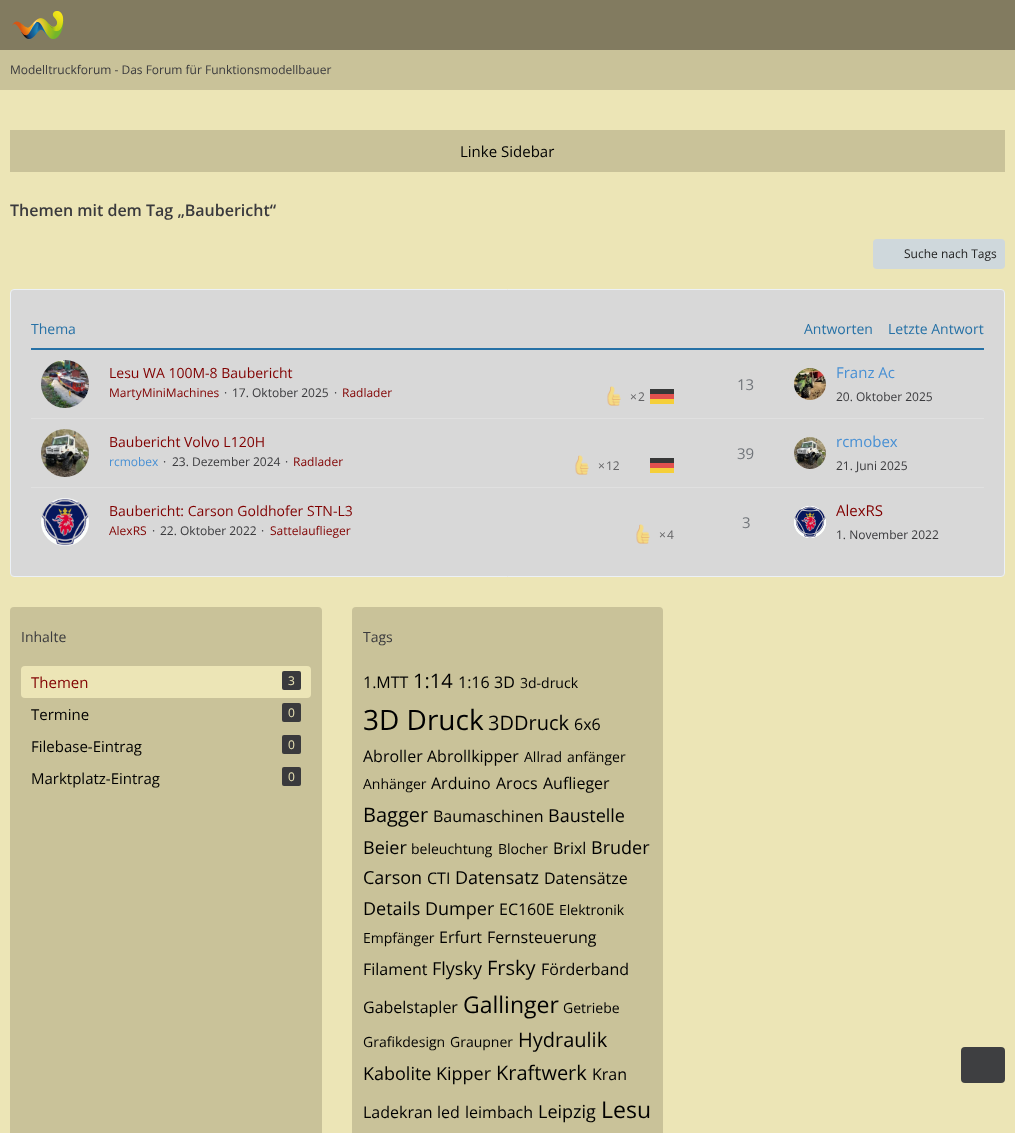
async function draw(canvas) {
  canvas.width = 1015
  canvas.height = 1133
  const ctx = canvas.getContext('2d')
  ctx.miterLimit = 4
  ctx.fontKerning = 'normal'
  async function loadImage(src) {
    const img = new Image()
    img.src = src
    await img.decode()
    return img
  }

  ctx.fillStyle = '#ece5b6'
  ctx.fillRect(0, 0, 1015, 1133)
  ctx.fillStyle = '#827b60'
  ctx.fillRect(0, 0, 1015, 50)
  ctx.drawImage(await loadImage('image0.png'), 12, 11, 52, 28)
  ctx.fillStyle = '#c9c299'
  ctx.fillRect(0, 50, 1015, 40)
  ctx.font = '12px Open Sans'
  ctx.fillStyle = '#3a3a3d'
  ctx.fillText('Modelltruckforum - Das Forum für Funktionsmodellbauer', 10, 74)
  ctx.fillStyle = '#c9c299'
  ctx.fillRect(10, 130, 995, 42)
  ctx.font = '15px Open Sans'
  ctx.fillStyle = '#000'
  ctx.fillText('Linke Sidebar', 460, 157)
  ctx.font = '600 16px Open Sans'
  ctx.fillStyle = '#3a3a3d'
  ctx.fillText('Themen mit dem Tag „Baubericht“', 10, 216)
  ctx.fillStyle = '#cfd8dc'
  ctx.beginPath()
  ctx.roundRect(873, 239, 132, 30, 4)
  ctx.fill()
  ctx.font = '12px Open Sans'
  ctx.fillStyle = '#212121'
  ctx.fillText('Suche nach Tags', 904, 258)
  ctx.fillStyle = '#d8d8d8'
  ctx.beginPath()
  ctx.roundRect(10.5, 289.5, 994, 287, 3.5)
  ctx.fill()
  ctx.strokeStyle = '#ecf1f7'
  ctx.stroke()
  ctx.fillStyle = '#2671a6'
  ctx.fillRect(31, 348, 953, 2)
  ctx.font = '14px Open Sans'
  ctx.fillText('Thema', 31, 334)
  ctx.fillText('Antworten', 804, 334)
  ctx.fillText('Letzte Antwort', 888, 334)
  ctx.drawImage(await loadImage('image1.png'), 41, 360, 48, 48)
  ctx.fillStyle = '#800000'
  ctx.fillText('Lesu WA 100M-8 Baubericht', 109, 378)
  ctx.font = '12px Open Sans'
  ctx.fillText('MartyMiniMachines', 109, 397)
  ctx.fillStyle = '#3a3a3d'
  ctx.fillText('·', 224, 397)
  ctx.fillText('17. Oktober 2025', 232, 397)
  ctx.fillText('·', 334, 397)
  ctx.fillStyle = '#800000'
  ctx.fillText('Radlader', 342, 397)
  ctx.drawImage(await loadImage('image2.png'), 607, 386, 14, 20)
  ctx.fillStyle = '#626264'
  ctx.fillText('×', 630, 401)
  ctx.fillText('2', 638, 401)
  ctx.fillStyle = '#373838'
  ctx.fillRect(650, 389, 24, 5)
  ctx.fillStyle = '#e2514e'
  ctx.fillRect(650, 394, 24, 5)
  ctx.fillStyle = '#f5cf39'
  ctx.fillRect(650, 399, 24, 5)
  ctx.font = '15px Open Sans'
  ctx.fillStyle = '#71757a'
  ctx.fillText('13', 737, 390)
  ctx.fillStyle = '#fff'
  ctx.beginPath()
  ctx.arc(810, 384, 16, 0, 2 * Math.PI)
  ctx.fill()
  ctx.drawImage(await loadImage('image3.png'), 794, 368, 32, 32)
  ctx.fillStyle = '#4890d4'
  ctx.fillText('Franz Ac', 836, 378)
  ctx.font = '12px Open Sans'
  ctx.fillStyle = '#3a3a3d'
  ctx.fillText('20. Oktober 2025', 836, 401)
  ctx.fillStyle = '#e0e0e0'
  ctx.fillRect(31, 418, 953, 1)
  ctx.drawImage(await loadImage('image4.png'), 41, 429, 48, 48)
  ctx.font = '14px Open Sans'
  ctx.fillStyle = '#800000'
  ctx.fillText('Baubericht Volvo L120H', 109, 447)
  ctx.font = '12px Open Sans'
  ctx.fillStyle = '#4890d4'
  ctx.fillText('rcmobex', 109, 466)
  ctx.fillStyle = '#3a3a3d'
  ctx.fillText('·', 163, 466)
  ctx.fillText('23. Dezember 2024', 172, 466)
  ctx.fillText('·', 285, 466)
  ctx.fillStyle = '#800000'
  ctx.fillText('Radlader', 293, 466)
  ctx.drawImage(await loadImage('image2.png'), 575, 455, 14, 20)
  ctx.fillStyle = '#626264'
  ctx.fillText('×', 598, 470)
  ctx.fillText('12', 606, 470)
  ctx.fillStyle = '#373838'
  ctx.fillRect(650, 458, 24, 5)
  ctx.fillStyle = '#e2514e'
  ctx.fillRect(650, 463, 24, 5)
  ctx.fillStyle = '#f5cf39'
  ctx.fillRect(650, 468, 24, 5)
  ctx.font = '15px Open Sans'
  ctx.fillStyle = '#71757a'
  ctx.fillText('39', 737, 459)
  ctx.fillStyle = '#fff'
  ctx.beginPath()
  ctx.arc(810, 453, 16, 0, 2 * Math.PI)
  ctx.fill()
  ctx.drawImage(await loadImage('image5.png'), 794, 437, 32, 32)
  ctx.fillStyle = '#4890d4'
  ctx.fillText('rcmobex', 836, 447)
  ctx.font = '12px Open Sans'
  ctx.fillStyle = '#3a3a3d'
  ctx.fillText('21. Juni 2025', 836, 470)
  ctx.fillStyle = '#e0e0e0'
  ctx.fillRect(31, 487, 953, 1)
  ctx.drawImage(await loadImage('image6.png'), 41, 498, 48, 48)
  ctx.font = '14px Open Sans'
  ctx.fillStyle = '#800000'
  ctx.fillText('Baubericht: Carson Goldhofer STN-L3', 109, 516)
  ctx.font = '12px Open Sans'
  ctx.fillText('AlexRS', 109, 535)
  ctx.fillStyle = '#3a3a3d'
  ctx.fillText('·', 152, 535)
  ctx.fillText('22. Oktober 2022', 160, 535)
  ctx.fillText('·', 261, 535)
  ctx.fillStyle = '#800000'
  ctx.fillText('Sattelauflieger', 270, 535)
  ctx.drawImage(await loadImage('image2.png'), 636, 524, 14, 20)
  ctx.fillStyle = '#626264'
  ctx.fillText('×', 659, 539)
  ctx.fillText('4', 667, 539)
  ctx.font = '15px Open Sans'
  ctx.fillStyle = '#71757a'
  ctx.fillText('3', 742, 528)
  ctx.fillStyle = '#fff'
  ctx.beginPath()
  ctx.arc(810, 522, 16, 0, 2 * Math.PI)
  ctx.fill()
  ctx.drawImage(await loadImage('image7.png'), 794, 506, 32, 32)
  ctx.fillStyle = '#800000'
  ctx.fillText('AlexRS', 836, 516)
  ctx.font = '12px Open Sans'
  ctx.fillStyle = '#3a3a3d'
  ctx.fillText('1. November 2022', 836, 539)
  ctx.fillStyle = '#c9c299'
  ctx.beginPath()
  ctx.roundRect(10, 607, 312, 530, 4)
  ctx.fill()
  ctx.font = '14px Open Sans'
  ctx.fillStyle = '#3a3a3d'
  ctx.fillText('Inhalte', 21, 642)
  ctx.fillStyle = '#ece5b6'
  ctx.beginPath()
  ctx.roundRect(21, 666, 290, 32, 4)
  ctx.fill()
  ctx.font = '15px Open Sans'
  ctx.fillStyle = '#800000'
  ctx.fillText('Themen', 31, 688)
  ctx.fillStyle = '#3a3a3d'
  ctx.beginPath()
  ctx.roundRect(282, 671, 19, 19, 2)
  ctx.fill()
  ctx.font = '12px Open Sans'
  ctx.fillStyle = '#ece5b6'
  ctx.fillText('3', 288, 685)
  ctx.font = '15px Open Sans'
  ctx.fillStyle = '#000'
  ctx.fillText('Termine', 31, 720)
  ctx.fillStyle = '#3a3a3d'
  ctx.beginPath()
  ctx.roundRect(282, 703, 19, 19, 2)
  ctx.fill()
  ctx.font = '12px Open Sans'
  ctx.fillStyle = '#ece5b6'
  ctx.fillText('0', 288, 717)
  ctx.font = '15px Open Sans'
  ctx.fillStyle = '#000'
  ctx.fillText('Filebase-Eintrag', 31, 752)
  ctx.fillStyle = '#3a3a3d'
  ctx.beginPath()
  ctx.roundRect(282, 735, 19, 19, 2)
  ctx.fill()
  ctx.font = '12px Open Sans'
  ctx.fillStyle = '#ece5b6'
  ctx.fillText('0', 288, 749)
  ctx.font = '15px Open Sans'
  ctx.fillStyle = '#000'
  ctx.fillText('Marktplatz-Eintrag', 31, 784)
  ctx.fillStyle = '#3a3a3d'
  ctx.beginPath()
  ctx.roundRect(282, 767, 19, 19, 2)
  ctx.fill()
  ctx.font = '12px Open Sans'
  ctx.fillStyle = '#ece5b6'
  ctx.fillText('0', 288, 781)
  ctx.fillStyle = '#c9c299'
  ctx.beginPath()
  ctx.roundRect(352, 607, 311, 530, 4)
  ctx.fill()
  ctx.font = '14px Open Sans'
  ctx.fillStyle = '#3a3a3d'
  ctx.fillText('Tags', 363, 642)
  ctx.font = '16px Open Sans'
  ctx.fillStyle = '#000'
  ctx.fillText('1.MTT', 363, 688)
  ctx.font = '20px Open Sans'
  ctx.fillText('1:14', 413, 688)
  ctx.font = '16px Open Sans'
  ctx.fillText('1:16', 458, 688)
  ctx.fillText('3D', 494, 688)
  ctx.font = '14px Open Sans'
  ctx.fillText('3d-druck', 520, 688)
  ctx.font = '28px Open Sans'
  ctx.fillText('3D Druck', 363, 730)
  ctx.font = '20px Open Sans'
  ctx.fillText('3DDruck', 488, 730)
  ctx.font = '16px Open Sans'
  ctx.fillText('6x6', 574, 730)
  ctx.fillText('Abroller', 363, 762)
  ctx.fillText('Abrollkipper', 427, 762)
  ctx.font = '14px Open Sans'
  ctx.fillText('Allrad', 524, 762)
  ctx.fillText('anfänger', 567, 762)
  ctx.fillText('Anhänger', 363, 789)
  ctx.font = '16px Open Sans'
  ctx.fillText('Arduino', 431, 789)
  ctx.fillText('Arocs', 496, 789)
  ctx.fillText('Auflieger', 543, 789)
  ctx.font = '20px Open Sans'
  ctx.fillText('Bagger', 363, 822)
  ctx.font = '16px Open Sans'
  ctx.fillText('Baumaschinen', 433, 822)
  ctx.font = '18px Open Sans'
  ctx.fillText('Baustelle', 548, 822)
  ctx.fillText('Beier', 363, 854)
  ctx.font = '14px Open Sans'
  ctx.fillText('beleuchtung', 411, 854)
  ctx.fillText('Blocher', 498, 854)
  ctx.font = '16px Open Sans'
  ctx.fillText('Brixl', 553, 854)
  ctx.font = '18px Open Sans'
  ctx.fillText('Bruder', 591, 854)
  ctx.fillText('Carson', 363, 884)
  ctx.font = '16px Open Sans'
  ctx.fillText('CTI', 427, 884)
  ctx.font = '18px Open Sans'
  ctx.fillText('Datensatz', 455, 884)
  ctx.font = '16px Open Sans'
  ctx.fillText('Datensätze', 544, 884)
  ctx.font = '18px Open Sans'
  ctx.fillText('Details', 363, 915)
  ctx.fillText('Dumper', 425, 915)
  ctx.font = '16px Open Sans'
  ctx.fillText('EC160E', 499, 915)
  ctx.font = '14px Open Sans'
  ctx.fillText('Elektronik', 559, 915)
  ctx.fillText('Empfänger', 363, 943)
  ctx.font = '16px Open Sans'
  ctx.fillText('Erfurt', 439, 943)
  ctx.fillText('Fernsteuerung', 487, 943)
  ctx.fillText('Filament', 363, 975)
  ctx.font = '18px Open Sans'
  ctx.fillText('Flysky', 432, 975)
  ctx.font = '20px Open Sans'
  ctx.fillText('Frsky', 487, 975)
  ctx.font = '16px Open Sans'
  ctx.fillText('Förderband', 541, 975)
  ctx.fillText('Gabelstapler', 363, 1013)
  ctx.font = '23px Open Sans'
  ctx.fillText('Gallinger', 463, 1013)
  ctx.font = '14px Open Sans'
  ctx.fillText('Getriebe', 563, 1013)
  ctx.fillText('Grafikdesign', 363, 1047)
  ctx.fillText('Graupner', 450, 1047)
  ctx.font = '20px Open Sans'
  ctx.fillText('Hydraulik', 518, 1047)
  ctx.font = '18px Open Sans'
  ctx.fillText('Kabolite', 363, 1080)
  ctx.fillText('Kipper', 436, 1080)
  ctx.font = '20px Open Sans'
  ctx.fillText('Kraftwerk', 496, 1080)
  ctx.font = '16px Open Sans'
  ctx.fillText('Kran', 592, 1080)
  ctx.fillText('Ladekran', 363, 1118)
  ctx.fillText('led', 437, 1118)
  ctx.fillText('leimbach', 465, 1118)
  ctx.font = '18px Open Sans'
  ctx.fillText('Leipzig', 538, 1118)
  ctx.font = '23px Open Sans'
  ctx.fillText('Lesu', 601, 1118)
  ctx.fillStyle = '#3e3f41'
  ctx.beginPath()
  ctx.roundRect(961, 1047, 44, 36, 4)
  ctx.fill()
}

draw(document.querySelector('canvas'))
